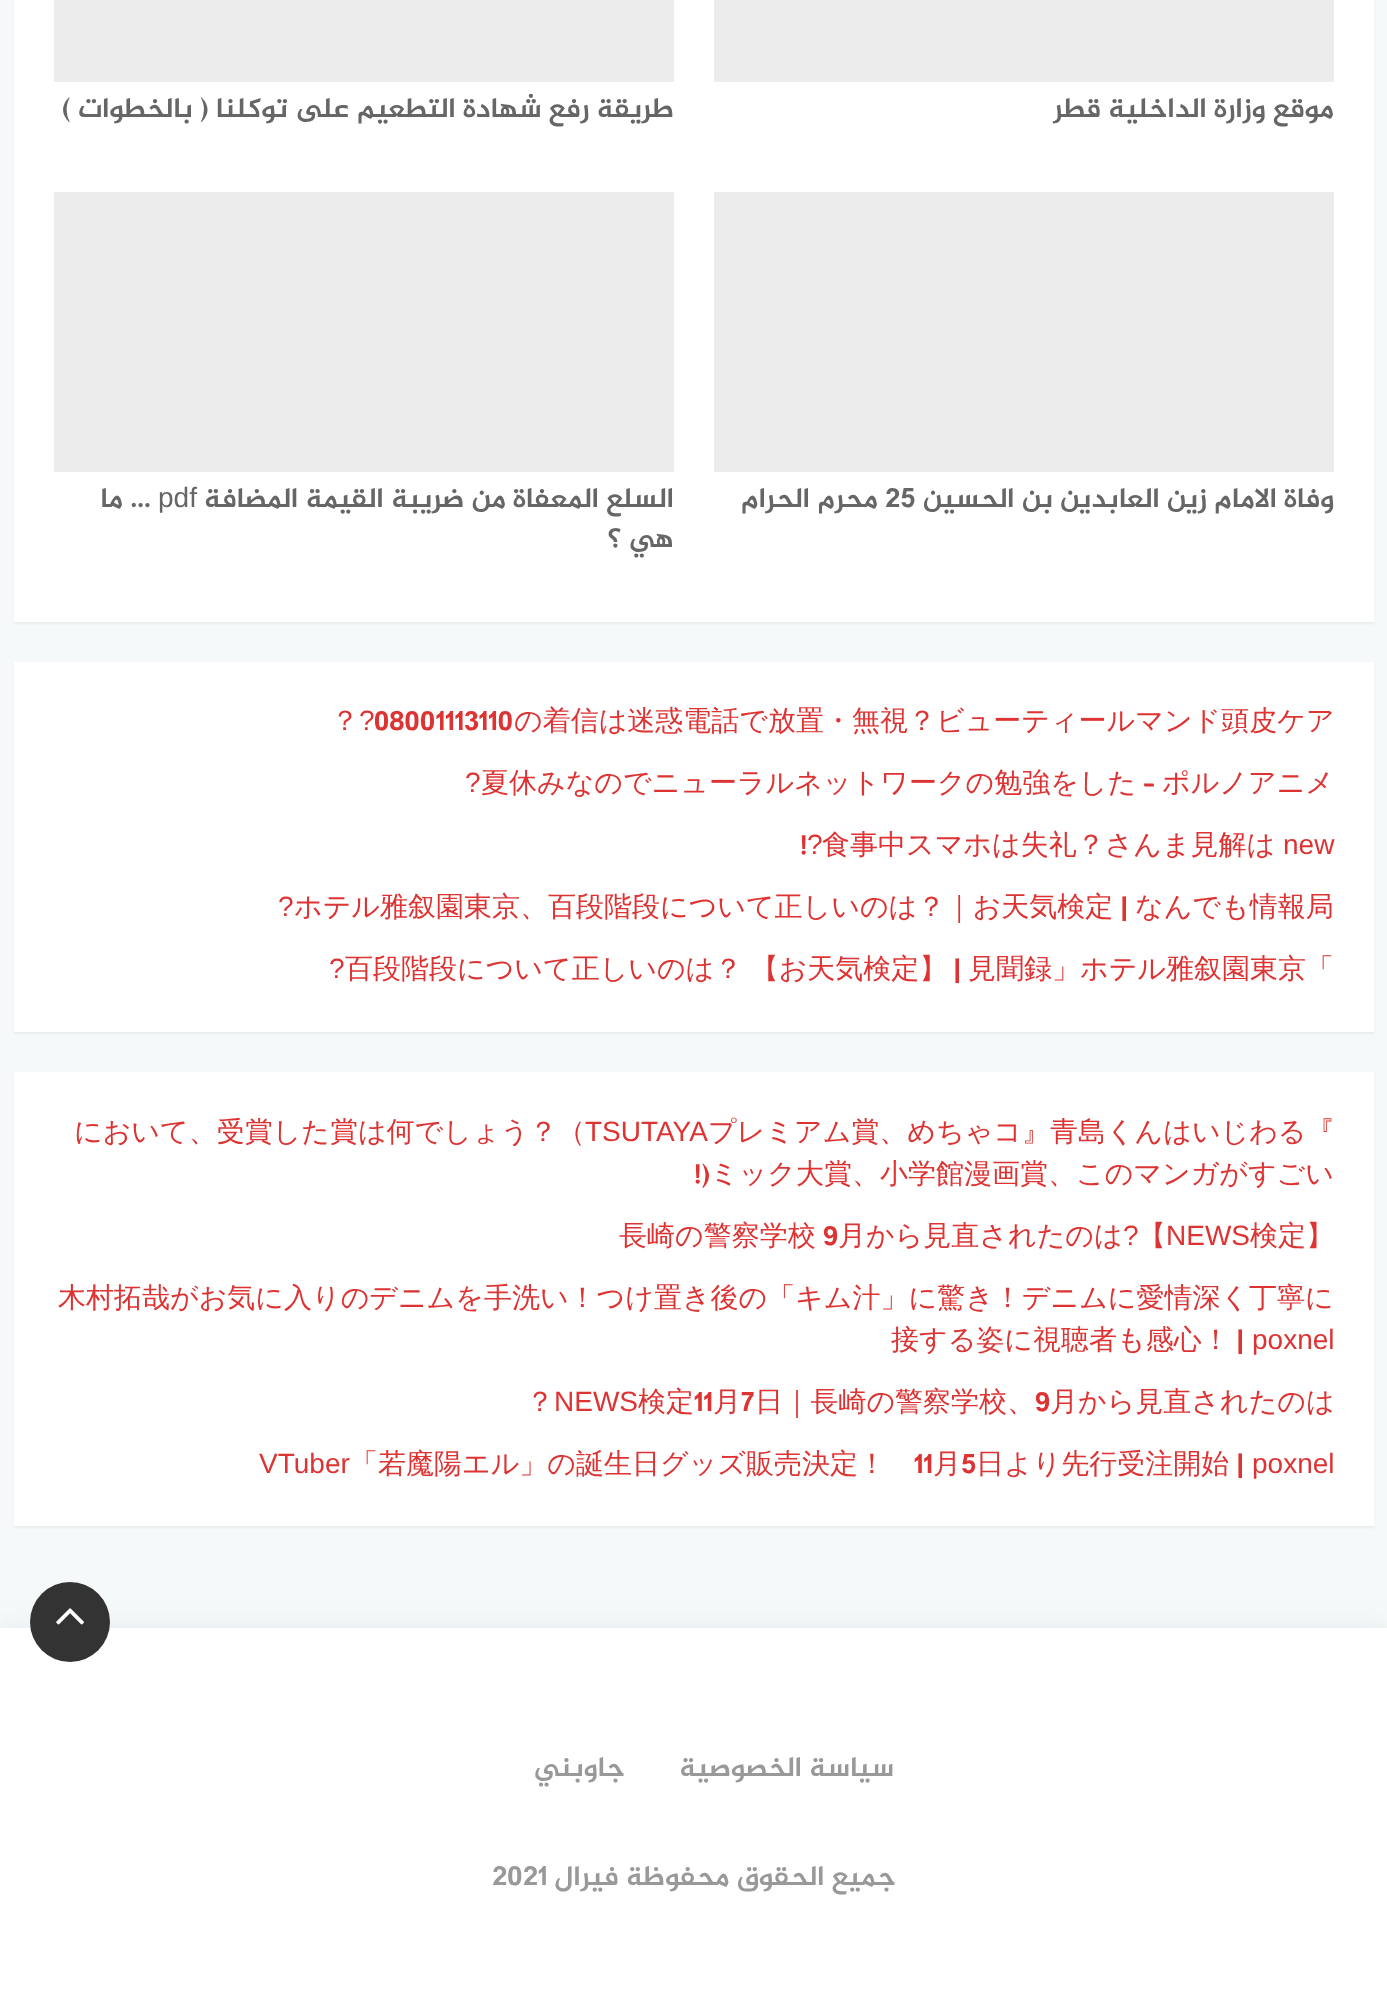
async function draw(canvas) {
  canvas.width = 1387
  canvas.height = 2011
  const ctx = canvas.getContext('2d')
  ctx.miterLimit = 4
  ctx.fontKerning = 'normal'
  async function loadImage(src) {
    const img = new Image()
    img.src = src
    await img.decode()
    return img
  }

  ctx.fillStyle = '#f6f9f9'
  ctx.fillRect(0, 0, 1387, 2011)
  ctx.fillStyle = '#0000000d'
  ctx.filter = 'blur(1px)'
  ctx.beginPath()
  ctx.rect(14, -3, 1360, 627)
  ctx.fill()
  ctx.filter = 'none'
  ctx.fillStyle = '#fff'
  ctx.fillRect(14, 0, 1360, 622)
  ctx.fillStyle = '#ececec'
  ctx.fillRect(54, 0, 620, 82)
  ctx.direction = 'rtl'
  ctx.font = 'bold 28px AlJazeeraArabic'
  ctx.fillStyle = '#666'
  ctx.fillText('طريقة رفع شهادة التطعيم على توكلنا ( بالخطوات )', 674, 117)
  ctx.fillStyle = '#ececec'
  ctx.fillRect(714, 0, 620, 82)
  ctx.fillStyle = '#666'
  ctx.fillText('موقع وزارة الداخلية قطر', 1334, 117)
  ctx.fillStyle = '#ececec'
  ctx.fillRect(54, 192, 620, 280)
  ctx.fillStyle = '#666'
  ctx.fillText('… ما', 151, 507)
  ctx.direction = 'ltr'
  ctx.font = '28px Liberation Sans'
  ctx.fillText('pdf', 158, 507)
  ctx.direction = 'rtl'
  ctx.font = 'bold 28px AlJazeeraArabic'
  ctx.fillText('السلع المعفاة من ضريبة القيمة المضافة', 674, 507)
  ctx.fillText('هي ؟', 674, 547)
  ctx.fillStyle = '#ececec'
  ctx.fillRect(714, 192, 620, 280)
  ctx.fillStyle = '#666'
  ctx.fillText('محرم الحرام', 878, 507)
  ctx.direction = 'ltr'
  ctx.fillText('25', 885, 507)
  ctx.direction = 'rtl'
  ctx.fillText('وفاة الامام زين العابدين بن الحسين', 1334, 507)
  ctx.fillStyle = '#0000000d'
  ctx.filter = 'blur(1px)'
  ctx.beginPath()
  ctx.rect(14, 664, 1360, 370)
  ctx.fill()
  ctx.filter = 'none'
  ctx.fillStyle = '#fff'
  ctx.fillRect(14, 662, 1360, 370)
  ctx.direction = 'ltr'
  ctx.font = '500 28px WenQuanYi Zen Hei'
  ctx.fillStyle = '#d33'
  ctx.fillText('？', 331, 730)
  ctx.font = '28px Liberation Sans'
  ctx.fillText('?', 359, 730)
  ctx.font = 'bold 28px AlJazeeraArabic'
  ctx.fillText('08001113110', 374, 730)
  ctx.font = '500 28px WenQuanYi Zen Hei'
  ctx.fillText('の着信は迷惑電話で放置・無視？ビューティールマンド頭皮ケア', 514, 730)
  ctx.font = '28px Liberation Sans'
  ctx.fillText('?', 465, 792)
  ctx.font = '500 28px WenQuanYi Zen Hei'
  ctx.fillText('夏休みなのでニューラルネットワークの勉強をした', 481, 792)
  ctx.font = 'bold 28px AlJazeeraArabic'
  ctx.fillText('–', 1143, 792)
  ctx.font = '500 28px WenQuanYi Zen Hei'
  ctx.fillText('ポルノアニメ', 1162, 792)
  ctx.font = 'bold 28px AlJazeeraArabic'
  ctx.fillText('!', 800, 854)
  ctx.font = '28px Liberation Sans'
  ctx.fillText('?', 807, 854)
  ctx.font = '500 28px WenQuanYi Zen Hei'
  ctx.fillText('食事中スマホは失礼？さんま見解は', 822, 854)
  ctx.font = '28px Liberation Sans'
  ctx.fillText('new', 1283, 854)
  ctx.fillText('?', 278, 916)
  ctx.font = '500 28px WenQuanYi Zen Hei'
  ctx.fillText('ホテル雅叙園東京、百段階段について正しいのは？｜お天気検定', 294, 916)
  ctx.font = 'bold 28px AlJazeeraArabic'
  ctx.fillText('|', 1120, 916)
  ctx.font = '500 28px WenQuanYi Zen Hei'
  ctx.fillText('なんでも情報局', 1135, 916)
  ctx.font = '28px Liberation Sans'
  ctx.fillText('?', 329, 978)
  ctx.font = '500 28px WenQuanYi Zen Hei'
  ctx.fillText('百段階段について正しいのは？ 【お天気検定】', 345, 978)
  ctx.font = 'bold 28px AlJazeeraArabic'
  ctx.fillText('|', 953, 978)
  ctx.font = '500 28px WenQuanYi Zen Hei'
  ctx.fillText('見聞録」ホテル雅叙園東京「', 968, 978)
  ctx.fillStyle = '#0000000d'
  ctx.filter = 'blur(1px)'
  ctx.beginPath()
  ctx.rect(14, 1074, 1360, 454)
  ctx.fill()
  ctx.filter = 'none'
  ctx.fillStyle = '#fff'
  ctx.fillRect(14, 1072, 1360, 454)
  ctx.fillStyle = '#d33'
  ctx.fillText('において、受賞した賞は何でしょう？（', 74, 1141)
  ctx.font = '28px Liberation Sans'
  ctx.fillText('TSUTAYA', 585, 1141)
  ctx.font = '500 28px WenQuanYi Zen Hei'
  ctx.fillText('プレミアム賞、めちゃコ』青島くんはいじわる『', 708, 1141)
  ctx.font = 'bold 28px AlJazeeraArabic'
  ctx.fillText('!)', 694, 1183)
  ctx.font = '500 28px WenQuanYi Zen Hei'
  ctx.fillText('ミック大賞、小学館漫画賞、このマンガがすごい', 710, 1183)
  ctx.fillText('長崎の警察学校', 619, 1245)
  ctx.font = 'bold 28px AlJazeeraArabic'
  ctx.fillText('9', 823, 1245)
  ctx.font = '500 28px WenQuanYi Zen Hei'
  ctx.fillText('月から見直されたのは', 838, 1245)
  ctx.font = '28px Liberation Sans'
  ctx.fillText('?', 1123, 1245)
  ctx.font = '500 28px WenQuanYi Zen Hei'
  ctx.fillText('【', 1138, 1245)
  ctx.font = '28px Liberation Sans'
  ctx.fillText('NEWS', 1166, 1245)
  ctx.font = '500 28px WenQuanYi Zen Hei'
  ctx.fillText('検定】', 1250, 1245)
  ctx.fillText('木村拓哉がお気に入りのデニムを手洗い！つけ置き後の「キム汁」に驚き！デニムに愛情深く丁寧に', 58, 1307)
  ctx.fillText('接する姿に視聴者も感心！', 891, 1349)
  ctx.font = 'bold 28px AlJazeeraArabic'
  ctx.fillText('|', 1236, 1349)
  ctx.font = '28px Liberation Sans'
  ctx.fillText('poxnel', 1252, 1349)
  ctx.font = '500 28px WenQuanYi Zen Hei'
  ctx.fillText('？', 526, 1411)
  ctx.font = '28px Liberation Sans'
  ctx.fillText('NEWS', 554, 1411)
  ctx.font = '500 28px WenQuanYi Zen Hei'
  ctx.fillText('検定', 638, 1411)
  ctx.font = 'bold 28px AlJazeeraArabic'
  ctx.fillText('11', 694, 1411)
  ctx.font = '500 28px WenQuanYi Zen Hei'
  ctx.fillText('月', 713, 1411)
  ctx.font = 'bold 28px AlJazeeraArabic'
  ctx.fillText('7', 741, 1411)
  ctx.font = '500 28px WenQuanYi Zen Hei'
  ctx.fillText('日｜長崎の警察学校、', 755, 1411)
  ctx.font = 'bold 28px AlJazeeraArabic'
  ctx.fillText('9', 1035, 1411)
  ctx.font = '500 28px WenQuanYi Zen Hei'
  ctx.fillText('月から見直されたのは', 1050, 1411)
  ctx.font = '28px Liberation Sans'
  ctx.fillText('VTuber', 259, 1473)
  ctx.font = '500 28px WenQuanYi Zen Hei'
  ctx.fillText('「若魔陽エル」の誕生日グッズ販売決定！', 350, 1473)
  ctx.font = 'bold 28px AlJazeeraArabic'
  ctx.fillText('11', 914, 1473)
  ctx.font = '500 28px WenQuanYi Zen Hei'
  ctx.fillText('月', 933, 1473)
  ctx.font = 'bold 28px AlJazeeraArabic'
  ctx.fillText('5', 961, 1473)
  ctx.font = '500 28px WenQuanYi Zen Hei'
  ctx.fillText('日より先行受注開始', 976, 1473)
  ctx.font = 'bold 28px AlJazeeraArabic'
  ctx.fillText('|', 1236, 1473)
  ctx.font = '28px Liberation Sans'
  ctx.fillText('poxnel', 1252, 1473)
  ctx.fillStyle = '#6e8fab26'
  ctx.filter = 'blur(12px)'
  ctx.beginPath()
  ctx.rect(0, 1628, 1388, 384)
  ctx.fill()
  ctx.filter = 'none'
  ctx.fillStyle = '#fff'
  ctx.fillRect(0, 1628, 1387, 383)
  ctx.fillStyle = '#333'
  ctx.beginPath()
  ctx.arc(70, 1622, 40, 0, 2 * Math.PI)
  ctx.fill()
  ctx.drawImage(await loadImage('image0.png'), 56, 1608, 28, 17)
  ctx.direction = 'rtl'
  ctx.font = 'bold 28px AlJazeeraArabic'
  ctx.fillStyle = '#999'
  ctx.fillText('جاوبني', 625, 1776)
  ctx.fillText('سياسة الخصوصية', 894, 1776)
  ctx.direction = 'ltr'
  ctx.fillText('2021', 492, 1885)
  ctx.direction = 'rtl'
  ctx.fillText('جميع الحقوق محفوظة فيرال', 896, 1885)
}

draw(document.querySelector('canvas'))
